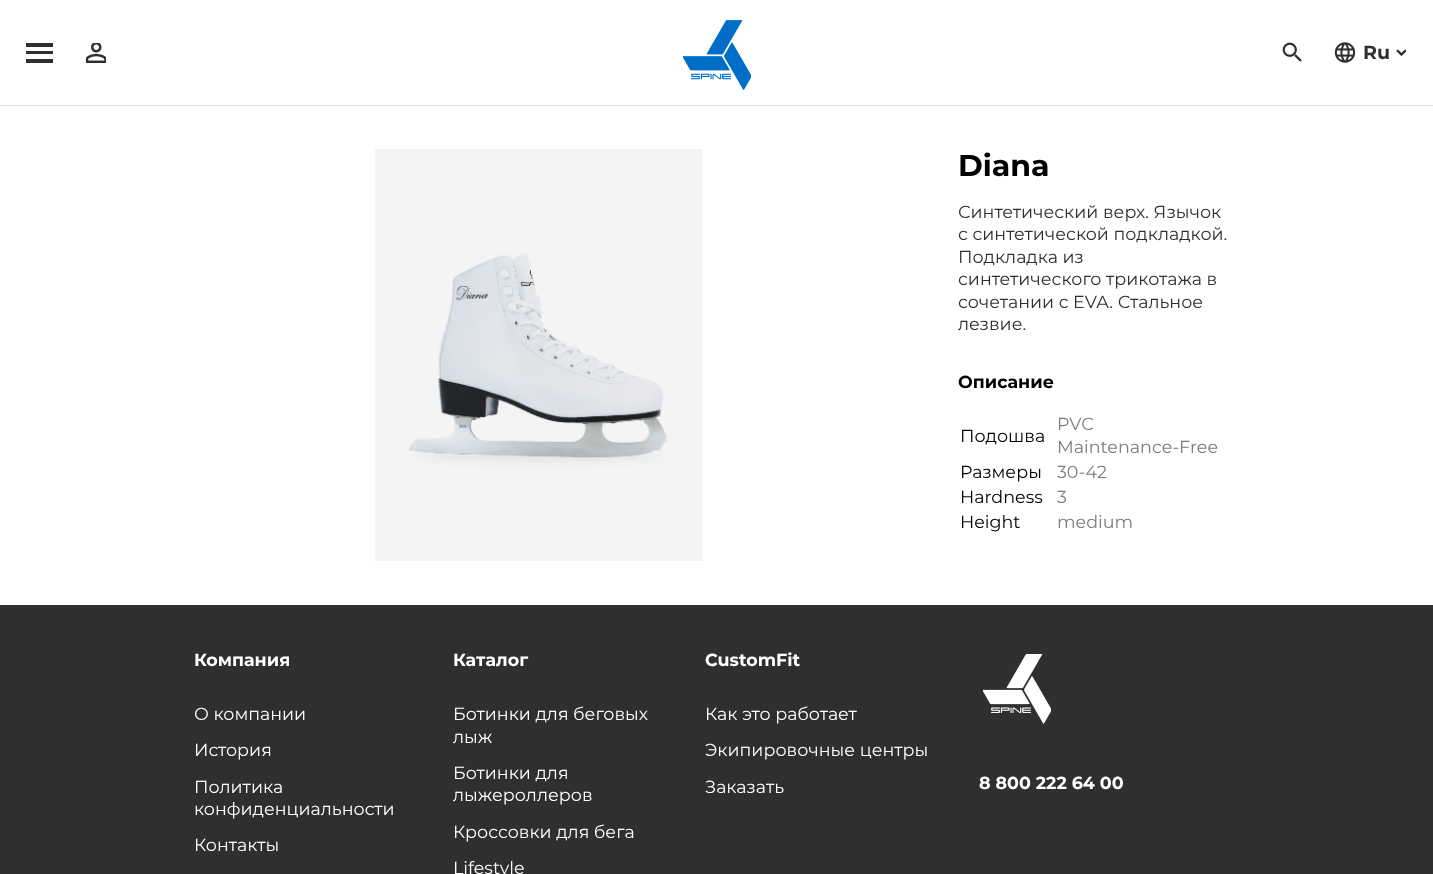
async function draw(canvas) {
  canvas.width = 1433
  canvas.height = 874
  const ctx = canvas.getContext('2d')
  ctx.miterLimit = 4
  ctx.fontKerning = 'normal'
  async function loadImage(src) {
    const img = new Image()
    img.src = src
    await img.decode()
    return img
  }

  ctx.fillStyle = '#fff'
  ctx.fillRect(0, 0, 1433, 874)
  ctx.fillStyle = '#2f2f2f'
  ctx.fillRect(26, 51, 27, 3)
  ctx.fillRect(26, 43, 27, 4)
  ctx.fillRect(26, 59, 27, 4)
  ctx.drawImage(await loadImage('image0.png'), 683, 20, 68, 70)
  ctx.drawImage(await loadImage('image1.png'), 86, 43, 20, 20)
  ctx.drawImage(await loadImage('image2.png'), 1282, 42, 20, 20)
  ctx.drawImage(await loadImage('image3.png'), 1334, 42, 22, 21)
  ctx.font = 'bold 19px "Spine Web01"'
  ctx.fillText('Ru', 1363, 59)
  ctx.drawImage(await loadImage('image4.png'), 1396, 49, 10, 7)
  ctx.fillStyle = '#dde2e7'
  ctx.fillRect(0, 105, 1433, 1)
  ctx.drawImage(await loadImage('image5.png'), 375, 149, 328, 412)
  ctx.font = 'bold 30px "Spine Web01"'
  ctx.fillStyle = '#000'
  ctx.fillText('Diana', 958, 176)
  ctx.font = '17.5px "Spine Web01"'
  ctx.fillStyle = '#2f2f2f'
  ctx.fillText('Синтетический верх. Язычок', 958, 218)
  ctx.fillText('с синтетической подкладкой.', 958, 240)
  ctx.fillText('Подкладка из', 958, 263)
  ctx.fillText('синтетического трикотажа в', 958, 285)
  ctx.fillText('сочетании с EVA. Стальное', 958, 308)
  ctx.fillText('лезвие.', 958, 330)
  ctx.font = 'bold 17.5px "Spine Web01"'
  ctx.fillStyle = '#000'
  ctx.fillText('Описание', 958, 388)
  ctx.font = '17.5px "Spine Web01"'
  ctx.fillText('Подошва', 960, 442)
  ctx.fillStyle = '#7c7c7c'
  ctx.fillText('PVC', 1057, 430)
  ctx.fillText('Maintenance-Free', 1057, 453)
  ctx.fillStyle = '#000'
  ctx.fillText('Размеры', 960, 478)
  ctx.fillStyle = '#7c7c7c'
  ctx.fillText('30-42', 1057, 478)
  ctx.fillStyle = '#000'
  ctx.fillText('Hardness', 960, 503)
  ctx.fillStyle = '#7c7c7c'
  ctx.fillText('3', 1057, 503)
  ctx.fillStyle = '#000'
  ctx.fillText('Height', 960, 528)
  ctx.fillStyle = '#7c7c7c'
  ctx.fillText('medium', 1057, 528)
  ctx.fillStyle = '#2f2f2f'
  ctx.fillRect(0, 605, 1433, 269)
  ctx.font = 'bold 17.5px "Spine Web01"'
  ctx.fillStyle = '#fff'
  ctx.fillText('Компания', 194, 666)
  ctx.font = '17.5px "Spine Web01"'
  ctx.fillText('О компании', 194, 720)
  ctx.fillText('История', 194, 756)
  ctx.fillText('Политика', 194, 793)
  ctx.fillText('конфиденциальности', 194, 815)
  ctx.fillText('Контакты', 194, 851)
  ctx.font = 'bold 17.5px "Spine Web01"'
  ctx.fillText('Каталог', 453, 666)
  ctx.font = '17.5px "Spine Web01"'
  ctx.fillText('Ботинки для беговых', 453, 720)
  ctx.fillText('лыж', 453, 743)
  ctx.fillText('Ботинки для', 453, 779)
  ctx.fillText('лыжероллеров', 453, 801)
  ctx.fillText('Кроссовки для бега', 453, 838)
  ctx.fillText('Lifestyle', 453, 874)
  ctx.font = 'bold 17.5px "Spine Web01"'
  ctx.fillText('CustomFit', 705, 666)
  ctx.font = '17.5px "Spine Web01"'
  ctx.fillText('Как это работает', 705, 720)
  ctx.fillText('Экипировочные центры', 705, 756)
  ctx.fillText('Заказать', 705, 793)
  ctx.drawImage(await loadImage('image6.png'), 983, 654, 68, 70)
  ctx.font = 'bold 17.5px "Spine Web01"'
  ctx.fillText('8 800 222 64 00', 979, 789)
}

draw(document.querySelector('canvas'))
